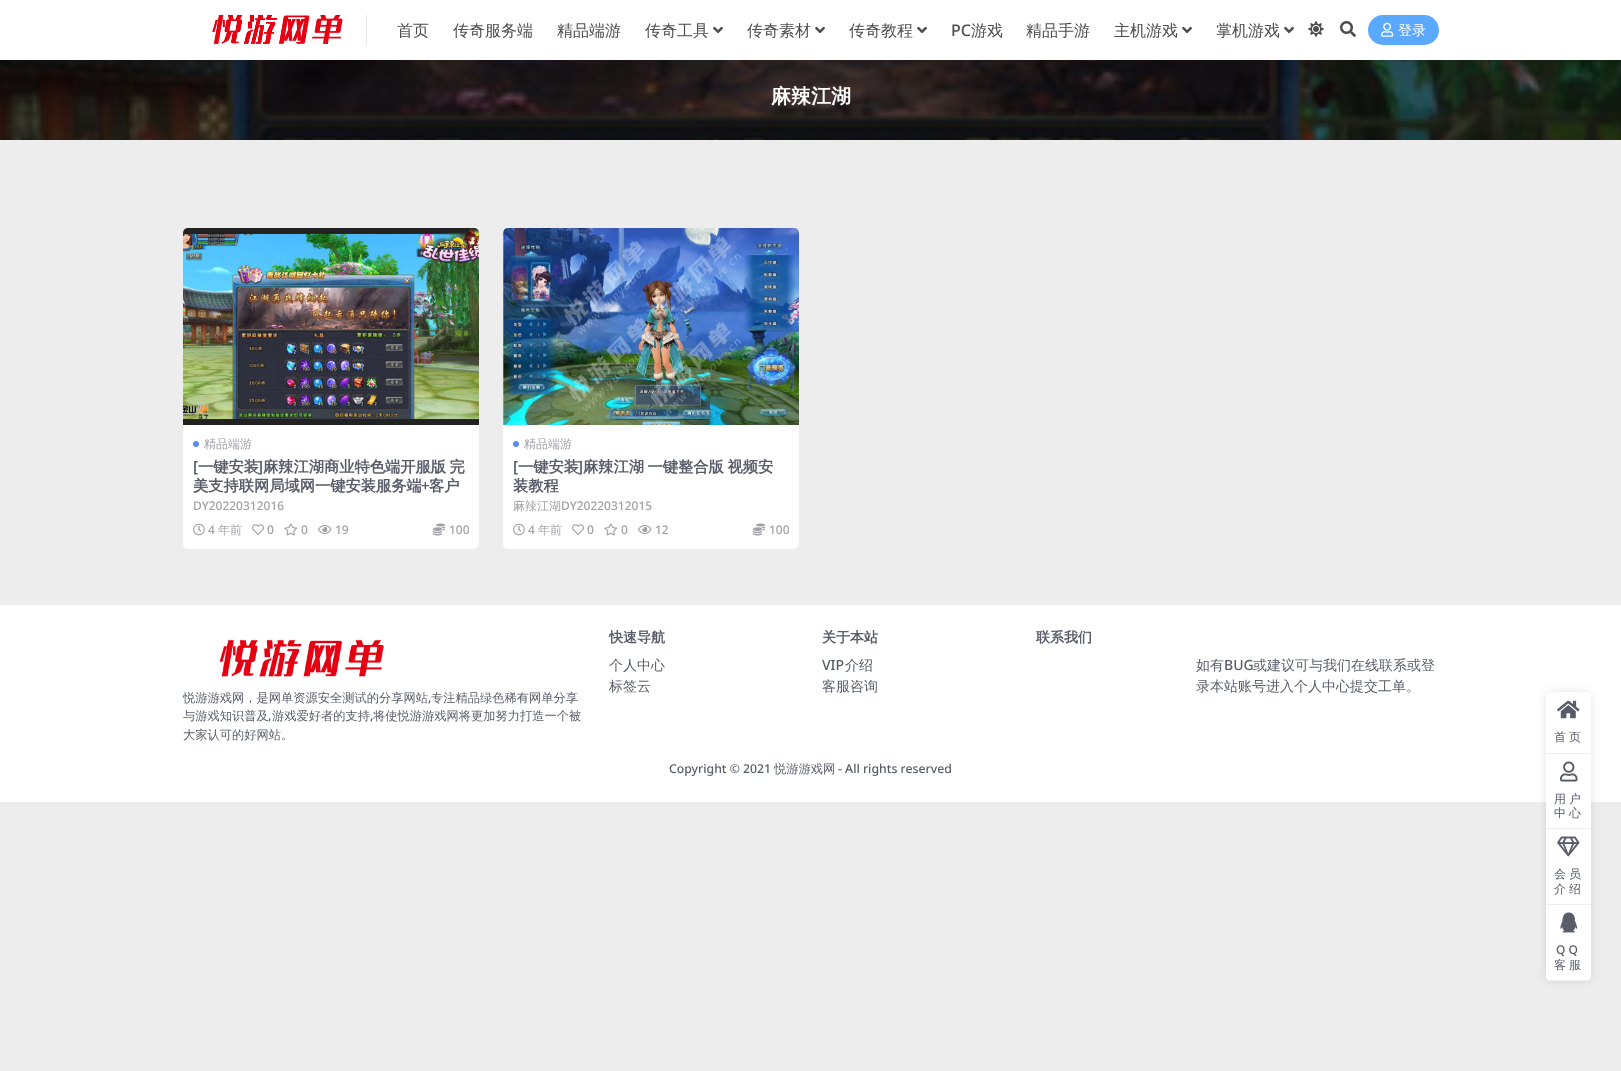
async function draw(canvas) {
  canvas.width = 1621
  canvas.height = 1071
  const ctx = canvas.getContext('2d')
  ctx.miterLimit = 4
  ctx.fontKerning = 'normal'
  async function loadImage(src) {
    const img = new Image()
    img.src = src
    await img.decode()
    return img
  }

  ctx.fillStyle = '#ededed'
  ctx.fillRect(0, 0, 1621, 1071)
  ctx.drawImage(await loadImage('image5.png'), 0, 60, 1621, 80)
  ctx.fillStyle = '#00000012'
  ctx.filter = 'blur(15px)'
  ctx.beginPath()
  ctx.rect(0, 0, 1621, 60)
  ctx.fill()
  ctx.filter = 'none'
  ctx.fillStyle = '#fff'
  ctx.fillRect(0, 0, 1621, 60)
  ctx.drawImage(await loadImage('image0.png'), 212, 14, 131, 30)
  ctx.fillStyle = '#e8e8e9'
  ctx.fillRect(366, 15, 1, 30)
  ctx.font = '500 16px WenQuanYi Zen Hei'
  ctx.fillStyle = '#4d4d4d'
  ctx.fillText('首页', 397, 36)
  ctx.fillText('传奇服务端', 453, 36)
  ctx.fillText('精品端游', 557, 36)
  ctx.fillText('传奇工具', 645, 36)
  ctx.drawImage(await loadImage('image1.png'), 713, 26, 10, 8)
  ctx.fillText('传奇素材', 747, 36)
  ctx.drawImage(await loadImage('image1.png'), 815, 26, 10, 8)
  ctx.fillText('传奇教程', 849, 36)
  ctx.drawImage(await loadImage('image1.png'), 917, 26, 10, 8)
  ctx.font = '500 16px Noto Sans'
  ctx.fillText('PC', 951, 36)
  ctx.font = '500 16px WenQuanYi Zen Hei'
  ctx.fillText('游戏', 971, 36)
  ctx.fillText('精品手游', 1026, 36)
  ctx.fillText('主机游戏', 1114, 36)
  ctx.drawImage(await loadImage('image1.png'), 1182, 26, 10, 8)
  ctx.fillText('掌机游戏', 1216, 36)
  ctx.drawImage(await loadImage('image1.png'), 1284, 26, 10, 8)
  ctx.drawImage(await loadImage('image2.png'), 1308, 21, 16, 16)
  ctx.drawImage(await loadImage('image3.png'), 1340, 21, 16, 16)
  ctx.fillStyle = '#5ba8ff'
  ctx.beginPath()
  ctx.roundRect(1368, 15, 71, 30, 15)
  ctx.fill()
  ctx.drawImage(await loadImage('image4.png'), 1381, 22, 13, 15)
  ctx.font = '500 14px WenQuanYi Zen Hei'
  ctx.fillStyle = '#fff'
  ctx.fillText('登录', 1398, 35)
  ctx.font = 'bold 20px WenQuanYi Zen Hei'
  ctx.fillText('麻辣江湖', 771, 103)
  ctx.beginPath()
  ctx.roundRect(183, 228, 296, 321, 5)
  ctx.fill()
  ctx.drawImage(await loadImage('image6.png'), 183, 228, 296, 197)
  ctx.fillStyle = '#598aee'
  ctx.beginPath()
  ctx.arc(196, 444, 3, 0, 2 * Math.PI)
  ctx.fill()
  ctx.font = '500 12px WenQuanYi Zen Hei'
  ctx.fillStyle = '#a1a1a8'
  ctx.fillText('精品端游', 204, 448)
  ctx.font = '600 15.25px Noto Sans'
  ctx.fillStyle = '#595d69'
  ctx.fillText('[', 193, 472)
  ctx.font = 'bold 15.25px WenQuanYi Zen Hei'
  ctx.fillText('一键安装', 198, 472)
  ctx.font = '600 15.25px Noto Sans'
  ctx.fillText(']', 258, 472)
  ctx.wordSpacing = '-1px'
  ctx.font = 'bold 15.25px WenQuanYi Zen Hei'
  ctx.fillText('麻辣江湖商业特色端开服版 完', 263, 472)
  ctx.wordSpacing = '0px'
  ctx.fillText('美支持联网局域网一键安装服务端', 193, 491)
  ctx.font = '600 15.25px Noto Sans'
  ctx.fillText('+', 421, 491)
  ctx.font = 'bold 15.25px WenQuanYi Zen Hei'
  ctx.fillText('客户', 429, 491)
  ctx.font = '500 12px Noto Sans'
  ctx.fillStyle = '#a1a1a8'
  ctx.fillText('DY20220312016', 193, 510)
  ctx.drawImage(await loadImage('image7.png'), 193, 523, 12, 13)
  ctx.fillText('4', 208, 534)
  ctx.font = '500 12px WenQuanYi Zen Hei'
  ctx.fillText('年前', 218, 534)
  ctx.drawImage(await loadImage('image8.png'), 252, 524, 12, 11)
  ctx.font = '500 12px Noto Sans'
  ctx.fillText('0', 267, 534)
  ctx.drawImage(await loadImage('image9.png'), 284, 523, 13, 13)
  ctx.fillText('0', 301, 534)
  ctx.drawImage(await loadImage('image10.png'), 318, 525, 14, 9)
  ctx.fillText('19', 335, 534)
  ctx.drawImage(await loadImage('image11.png'), 433, 523, 12, 13)
  ctx.fillText('100', 449, 534)
  ctx.fillStyle = '#fff'
  ctx.beginPath()
  ctx.roundRect(503, 228, 296, 321, 5)
  ctx.fill()
  ctx.drawImage(await loadImage('image12.png'), 503, 228, 296, 197)
  ctx.fillStyle = '#598aee'
  ctx.beginPath()
  ctx.arc(516, 444, 3, 0, 2 * Math.PI)
  ctx.fill()
  ctx.font = '500 12px WenQuanYi Zen Hei'
  ctx.fillStyle = '#a1a1a8'
  ctx.fillText('精品端游', 524, 448)
  ctx.font = '600 15.25px Noto Sans'
  ctx.fillStyle = '#595d69'
  ctx.fillText('[', 513, 472)
  ctx.font = 'bold 15.25px WenQuanYi Zen Hei'
  ctx.fillText('一键安装', 518, 472)
  ctx.font = '600 15.25px Noto Sans'
  ctx.fillText(']', 578, 472)
  ctx.wordSpacing = '-1px'
  ctx.font = 'bold 15.25px WenQuanYi Zen Hei'
  ctx.fillText('麻辣江湖 一键整合版 视频安', 583, 472)
  ctx.wordSpacing = '0px'
  ctx.fillText('装教程', 513, 491)
  ctx.font = '500 12px WenQuanYi Zen Hei'
  ctx.fillStyle = '#a1a1a8'
  ctx.fillText('麻辣江湖', 513, 510)
  ctx.font = '500 12px Noto Sans'
  ctx.fillText('DY20220312015', 561, 510)
  ctx.drawImage(await loadImage('image7.png'), 513, 523, 12, 13)
  ctx.fillText('4', 528, 534)
  ctx.font = '500 12px WenQuanYi Zen Hei'
  ctx.fillText('年前', 538, 534)
  ctx.drawImage(await loadImage('image8.png'), 572, 524, 12, 11)
  ctx.font = '500 12px Noto Sans'
  ctx.fillText('0', 587, 534)
  ctx.drawImage(await loadImage('image9.png'), 604, 523, 13, 13)
  ctx.fillText('0', 621, 534)
  ctx.drawImage(await loadImage('image10.png'), 638, 525, 14, 9)
  ctx.fillText('12', 655, 534)
  ctx.drawImage(await loadImage('image11.png'), 753, 523, 12, 13)
  ctx.fillText('100', 769, 534)
  ctx.fillStyle = '#fff'
  ctx.fillRect(0, 605, 1621, 197)
  ctx.font = 'bold 14px WenQuanYi Zen Hei'
  ctx.fillStyle = '#595d69'
  ctx.fillText('快速导航', 609, 642)
  ctx.font = '500 14px WenQuanYi Zen Hei'
  ctx.fillText('个人中心', 609, 670)
  ctx.fillText('标签云', 609, 691)
  ctx.font = 'bold 14px WenQuanYi Zen Hei'
  ctx.fillText('关于本站', 822, 642)
  ctx.font = '500 14px Noto Sans'
  ctx.fillText('VIP', 822, 670)
  ctx.font = '500 14px WenQuanYi Zen Hei'
  ctx.fillText('介绍', 845, 670)
  ctx.fillText('客服咨询', 822, 691)
  ctx.font = 'bold 14px WenQuanYi Zen Hei'
  ctx.fillText('联系我们', 1036, 642)
  ctx.font = '500 14px WenQuanYi Zen Hei'
  ctx.fillText('如有', 1196, 670)
  ctx.font = '500 14px Noto Sans'
  ctx.fillText('BUG', 1224, 670)
  ctx.font = '500 14px WenQuanYi Zen Hei'
  ctx.fillText('或建议可与我们在线联系或登', 1253, 670)
  ctx.fillText('录本站账号进入个人中心提交工单。', 1196, 691)
  ctx.drawImage(await loadImage('image13.png'), 219, 639, 165, 38)
  ctx.font = '500 12.25px WenQuanYi Zen Hei'
  ctx.fillText('悦游游戏网，是网单资源安全测试的分享网站', 183, 702)
  ctx.font = '500 12.25px Noto Sans'
  ctx.fillText(',', 428, 702)
  ctx.font = '500 12.25px WenQuanYi Zen Hei'
  ctx.fillText('专注精品绿色稀有网单分享', 431, 702)
  ctx.fillText('与游戏知识普及', 183, 720)
  ctx.font = '500 12.25px Noto Sans'
  ctx.fillText(',', 268, 720)
  ctx.font = '500 12.25px WenQuanYi Zen Hei'
  ctx.fillText('游戏爱好者的支持', 272, 720)
  ctx.font = '500 12.25px Noto Sans'
  ctx.fillText(',', 370, 720)
  ctx.font = '500 12.25px WenQuanYi Zen Hei'
  ctx.fillText('将使悦游游戏网将更加努力打造一个被', 373, 720)
  ctx.fillText('大家认可的好网站。', 183, 739)
  ctx.font = '500 12.25px Noto Sans'
  ctx.fillText('Copyright © 2021', 669, 773)
  ctx.font = '500 12.25px WenQuanYi Zen Hei'
  ctx.fillText('悦游游戏网', 774, 773)
  ctx.font = '500 12.25px Noto Sans'
  ctx.fillText('- All rights reserved', 838, 773)
  ctx.fillStyle = '#0000001a'
  ctx.filter = 'blur(5px)'
  ctx.beginPath()
  ctx.roundRect(1546, 692, 45, 289, 5)
  ctx.fill()
  ctx.filter = 'none'
  ctx.fillStyle = '#fff'
  ctx.beginPath()
  ctx.roundRect(1546, 692, 45, 62, [5, 5, 0, 0])
  ctx.fill()
  ctx.fillStyle = '#eee'
  ctx.fillRect(1546, 753, 45, 1)
  ctx.drawImage(await loadImage('image14.png'), 1557, 700, 23, 19)
  ctx.letterSpacing = '3px'
  ctx.font = '500 12px WenQuanYi Zen Hei'
  ctx.fillStyle = '#595d69'
  ctx.fillText('首页', 1554, 741)
  ctx.fillStyle = '#fff'
  ctx.fillRect(1546, 754, 45, 74)
  ctx.fillStyle = '#eee'
  ctx.fillRect(1546, 828, 45, 1)
  ctx.drawImage(await loadImage('image15.png'), 1560, 761, 18, 21)
  ctx.fillStyle = '#595d69'
  ctx.fillText('用户', 1554, 803)
  ctx.fillText('中心', 1554, 817)
  ctx.fillStyle = '#fff'
  ctx.fillRect(1546, 829, 45, 75)
  ctx.fillStyle = '#eee'
  ctx.fillRect(1546, 904, 45, 1)
  ctx.drawImage(await loadImage('image16.png'), 1557, 836, 23, 21)
  ctx.fillStyle = '#595d69'
  ctx.fillText('会员', 1554, 878)
  ctx.fillText('介绍', 1554, 893)
  ctx.fillStyle = '#fff'
  ctx.beginPath()
  ctx.roundRect(1546, 905, 45, 76, [0, 0, 5, 5])
  ctx.fill()
  ctx.save()
  ctx.beginPath()
  ctx.roundRect(1546, 692, 45, 289, 5)
  ctx.clip()
  ctx.fillStyle = '#eee'
  ctx.fillRect(1546, 980, 45, 1)
  ctx.restore()
  ctx.drawImage(await loadImage('image17.png'), 1560, 912, 18, 21)
  ctx.font = '500 12px Noto Sans'
  ctx.fillStyle = '#595d69'
  ctx.fillText('QQ', 1556, 954)
  ctx.font = '500 12px WenQuanYi Zen Hei'
  ctx.fillText('客服', 1554, 969)
}

draw(document.querySelector('canvas'))
